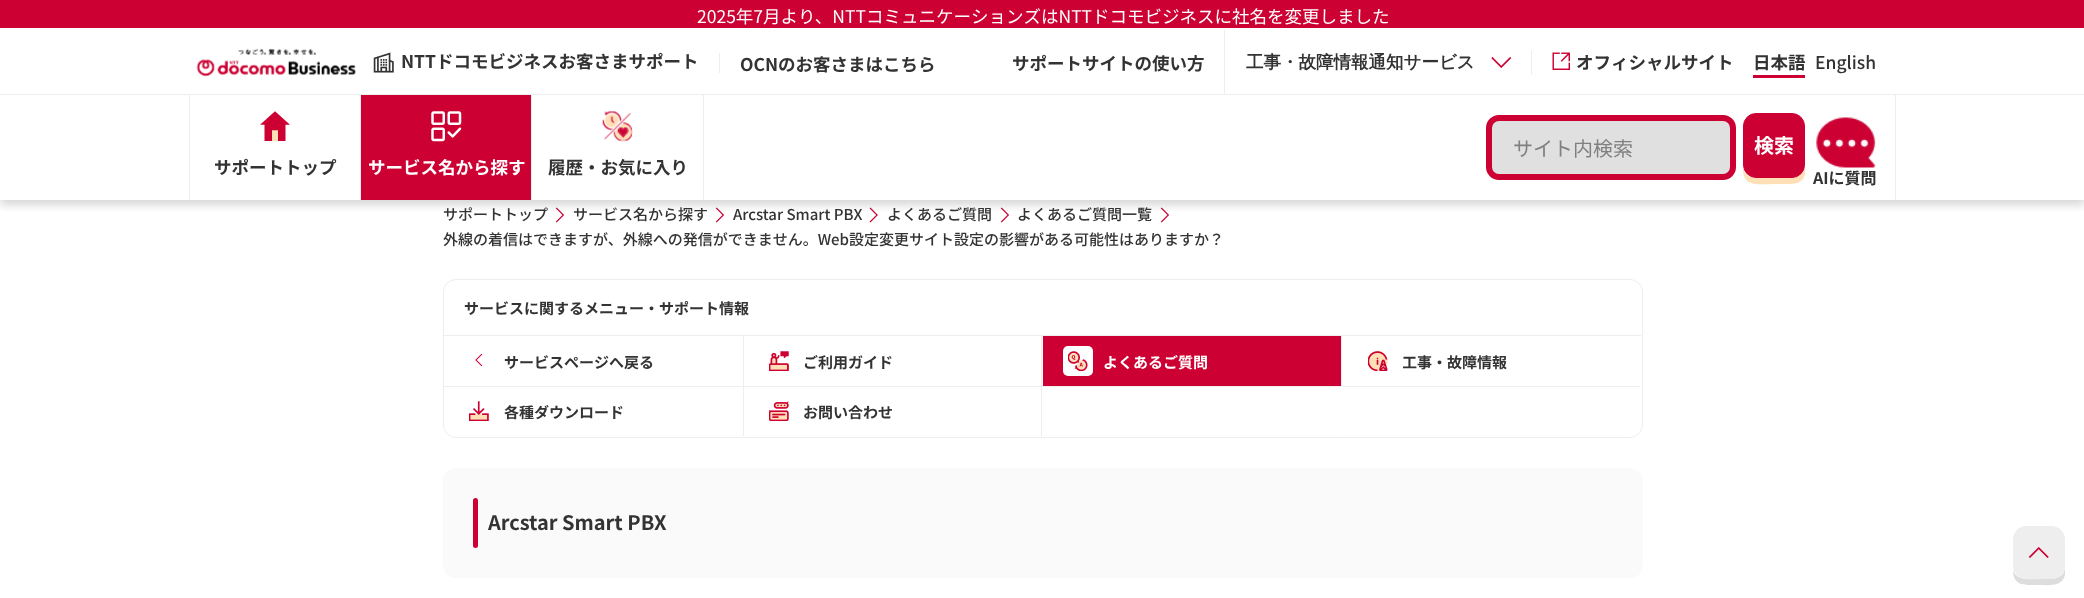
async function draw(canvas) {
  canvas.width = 2084
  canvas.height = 598
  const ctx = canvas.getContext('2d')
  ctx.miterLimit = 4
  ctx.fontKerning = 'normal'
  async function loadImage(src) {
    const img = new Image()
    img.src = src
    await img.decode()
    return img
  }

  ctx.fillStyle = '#fff'
  ctx.fillRect(0, 0, 2084, 598)
  ctx.drawImage(await loadImage('image8.png'), 555, 207, 9, 16)
  ctx.drawImage(await loadImage('image8.png'), 715, 207, 9, 16)
  ctx.drawImage(await loadImage('image9.png'), 869, 207, 9, 16)
  ctx.drawImage(await loadImage('image8.png'), 1000, 207, 9, 16)
  ctx.drawImage(await loadImage('image8.png'), 1160, 207, 9, 16)
  ctx.save()
  ctx.beginPath()
  ctx.rect(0, 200, 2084, 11)
  ctx.clip()
  ctx.fillStyle = '#00000029'
  ctx.filter = 'blur(5px)'
  ctx.beginPath()
  ctx.rect(0, 5, 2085, 200)
  ctx.fill()
  ctx.filter = 'none'
  ctx.restore()
  ctx.fillStyle = '#c03'
  ctx.fillRect(0, 0, 2084, 28)
  ctx.font = '17.5px Noto Sans JP'
  ctx.fillStyle = '#fff'
  ctx.fillText('2025年7月より、NTTコミュニケーションズはNTTドコモビジネスに社名を変更しました', 697, 23)
  ctx.drawImage(await loadImage('image0.png'), 196, 48, 160, 29)
  ctx.drawImage(await loadImage('image1.png'), 373, 52, 21, 21)
  ctx.font = 'bold 17.5px Noto Sans JP'
  ctx.fillStyle = '#333'
  ctx.fillText('NTTドコモビジネスお客さまサポート', 401, 68)
  ctx.fillStyle = '#eee'
  ctx.fillRect(719, 53, 1, 20)
  ctx.fillStyle = '#333'
  ctx.fillText('OCNのお客さまはこちら', 740, 71)
  ctx.fillText('サポートサイトの使い方', 1012, 70)
  ctx.fillStyle = '#eee'
  ctx.fillRect(0, 94, 2084, 1)
  ctx.fillRect(1224, 30, 1, 65)
  ctx.font = 'bold 17.5px WenQuanYi Zen Hei'
  ctx.fillStyle = '#333'
  ctx.fillText('工事・故障情報通知サービス', 1246, 68)
  ctx.drawImage(await loadImage('image2.png'), 1491, 57, 21, 11)
  ctx.fillStyle = '#eee'
  ctx.fillRect(1531, 50, 1, 25)
  ctx.drawImage(await loadImage('image3.png'), 1552, 52, 18, 18)
  ctx.font = 'bold 17.5px Noto Sans JP'
  ctx.fillStyle = '#333'
  ctx.fillText('オフィシャルサイト', 1576, 69)
  ctx.fillStyle = '#c03'
  ctx.fillRect(1753, 75, 52, 3)
  ctx.fillStyle = '#333'
  ctx.fillText('日本語', 1753, 69)
  ctx.font = '500 17.5px Noto Sans JP'
  ctx.fillText('English', 1815, 69)
  ctx.fillStyle = '#eee'
  ctx.fillRect(360, 95, 1, 105)
  ctx.fillRect(189, 95, 1, 105)
  ctx.drawImage(await loadImage('image4.png'), 260, 111, 30, 30)
  ctx.font = 'bold 17.5px Noto Sans JP'
  ctx.fillStyle = '#333'
  ctx.fillText('サポートトップ', 214, 174)
  ctx.fillStyle = '#eee'
  ctx.fillRect(531, 95, 1, 105)
  ctx.fillStyle = '#c03'
  ctx.fillRect(361, 95, 170, 105)
  ctx.drawImage(await loadImage('image5.png'), 431, 111, 31, 31)
  ctx.fillStyle = '#fff'
  ctx.fillText('サービス名から探す', 368, 174)
  ctx.fillStyle = '#eee'
  ctx.fillRect(703, 95, 1, 105)
  ctx.drawImage(await loadImage('image6.png'), 602, 111, 31, 31)
  ctx.fillStyle = '#333'
  ctx.fillText('履歴・お気に入り', 548, 174)
  ctx.fillStyle = '#eee'
  ctx.fillRect(1895, 95, 1, 105)
  ctx.fillStyle = '#e0e0e0'
  ctx.beginPath()
  ctx.roundRect(1489, 118, 244, 59, 10)
  ctx.fill()
  ctx.strokeStyle = '#c03'
  ctx.lineWidth = 6
  ctx.stroke()
  ctx.font = '20px Noto Sans JP'
  ctx.fillStyle = '#808080'
  ctx.fillText('サイト内検索', 1513, 156)
  ctx.fillStyle = '#ffe0b6'
  ctx.beginPath()
  ctx.moveTo(1743, 169)
  ctx.bezierCurveTo(1743, 188, 1760, 184, 1774, 184)
  ctx.lineTo(1786, 184)
  ctx.bezierCurveTo(1794, 184, 1803, 184, 1805, 174)
  ctx.lineTo(1805, 165)
  ctx.bezierCurveTo(1805, 172, 1799, 178, 1792, 178)
  ctx.lineTo(1755, 178)
  ctx.bezierCurveTo(1749, 178, 1745, 174, 1743, 169)
  ctx.closePath()
  ctx.fill()
  ctx.fillStyle = '#c03'
  ctx.beginPath()
  ctx.roundRect(1743.5, 113.5, 61, 64, 12.5)
  ctx.fill()
  ctx.lineWidth = 1
  ctx.stroke()
  ctx.font = 'bold 20px Noto Sans JP'
  ctx.fillStyle = '#fff'
  ctx.fillText('検索', 1754, 153)
  ctx.drawImage(await loadImage('image7.png'), 1816, 117, 60, 51)
  ctx.font = 'bold 16px Noto Sans JP'
  ctx.fillStyle = '#333'
  ctx.fillText('AIに質問', 1813, 184)
  ctx.font = '500 15px Noto Sans JP'
  ctx.fillText('サポートトップ', 443, 220)
  ctx.fillText('サービス名から探す', 573, 220)
  ctx.fillText('Arcstar Smart PBX', 733, 220)
  ctx.fillText('よくあるご質問', 887, 220)
  ctx.fillText('よくあるご質問一覧', 1017, 220)
  ctx.fillText('外線の着信はできますが、外線への発信ができません。Web設定変更サイト設定の影響がある可能性はありますか？', 443, 245)
  ctx.beginPath()
  ctx.roundRect(443.5, 279.5, 1199, 158, 12.5)
  ctx.strokeStyle = '#eee'
  ctx.stroke()
  ctx.fillStyle = '#eee'
  ctx.fillRect(444, 335, 1197, 1)
  ctx.font = 'bold 15px Noto Sans JP'
  ctx.fillStyle = '#333'
  ctx.fillText('サービスに関するメニュー・サポート情報', 464, 314)
  ctx.fillStyle = '#eee'
  ctx.fillRect(743, 336, 1, 100)
  ctx.drawImage(await loadImage('image10.png'), 475, 353, 8, 14)
  ctx.fillStyle = '#333'
  ctx.fillText('サービスページへ戻る', 504, 368)
  ctx.fillStyle = '#eee'
  ctx.fillRect(444, 386, 299, 1)
  ctx.fillRect(1041, 336, 1, 100)
  ctx.drawImage(await loadImage('image11.png'), 769, 351, 20, 20)
  ctx.fillStyle = '#333'
  ctx.fillText('ご利用ガイド', 803, 368)
  ctx.fillStyle = '#eee'
  ctx.fillRect(744, 386, 297, 1)
  ctx.fillRect(1341, 336, 1, 50)
  ctx.fillStyle = '#c03'
  ctx.fillRect(1043, 336, 298, 50)
  ctx.fillStyle = '#fff'
  ctx.beginPath()
  ctx.roundRect(1063, 346, 30, 30, 5)
  ctx.fill()
  ctx.drawImage(await loadImage('image12.png'), 1068, 351, 20, 20)
  ctx.fillText('よくあるご質問', 1103, 368)
  ctx.fillStyle = '#eee'
  ctx.fillRect(1043, 386, 298, 1)
  ctx.drawImage(await loadImage('image13.png'), 1368, 351, 20, 20)
  ctx.save()
  ctx.beginPath()
  ctx.rect(1403, 349, 217, 25)
  ctx.clip()
  ctx.fillStyle = '#333'
  ctx.fillText('工事・故障情報', 1402, 368)
  ctx.restore()
  ctx.fillRect(1343, 386, 297, 1)
  ctx.drawImage(await loadImage('image14.png'), 469, 401, 20, 20)
  ctx.fillStyle = '#333'
  ctx.fillText('各種ダウンロード', 504, 418)
  ctx.drawImage(await loadImage('image15.png'), 769, 401, 20, 20)
  ctx.fillText('お問い合わせ', 803, 418)
  ctx.fillStyle = '#fafafa'
  ctx.beginPath()
  ctx.roundRect(443, 468, 1200, 110, 13)
  ctx.fill()
  ctx.fillStyle = '#c03'
  ctx.beginPath()
  ctx.roundRect(473, 498, 5, 50, 2.5)
  ctx.fill()
  ctx.font = 'bold 20px Noto Sans JP'
  ctx.fillStyle = '#333'
  ctx.fillText('Arcstar Smart PBX', 488, 530)
  ctx.fillStyle = '#ddd'
  ctx.beginPath()
  ctx.moveTo(2013, 570)
  ctx.bezierCurveTo(2013, 587, 2026, 585, 2039, 585)
  ctx.bezierCurveTo(2049, 585, 2062, 587, 2065, 575)
  ctx.lineTo(2065, 566)
  ctx.bezierCurveTo(2065, 581, 2049, 579, 2039, 579)
  ctx.bezierCurveTo(2030, 579, 2016, 581, 2013, 570)
  ctx.closePath()
  ctx.fill()
  ctx.fillStyle = '#eee'
  ctx.beginPath()
  ctx.roundRect(2013.5, 526.5, 51, 52, 12.5)
  ctx.fill()
  ctx.stroke()
  ctx.drawImage(await loadImage('image16.png'), 2028, 547, 21, 11)
}

draw(document.querySelector('canvas'))
